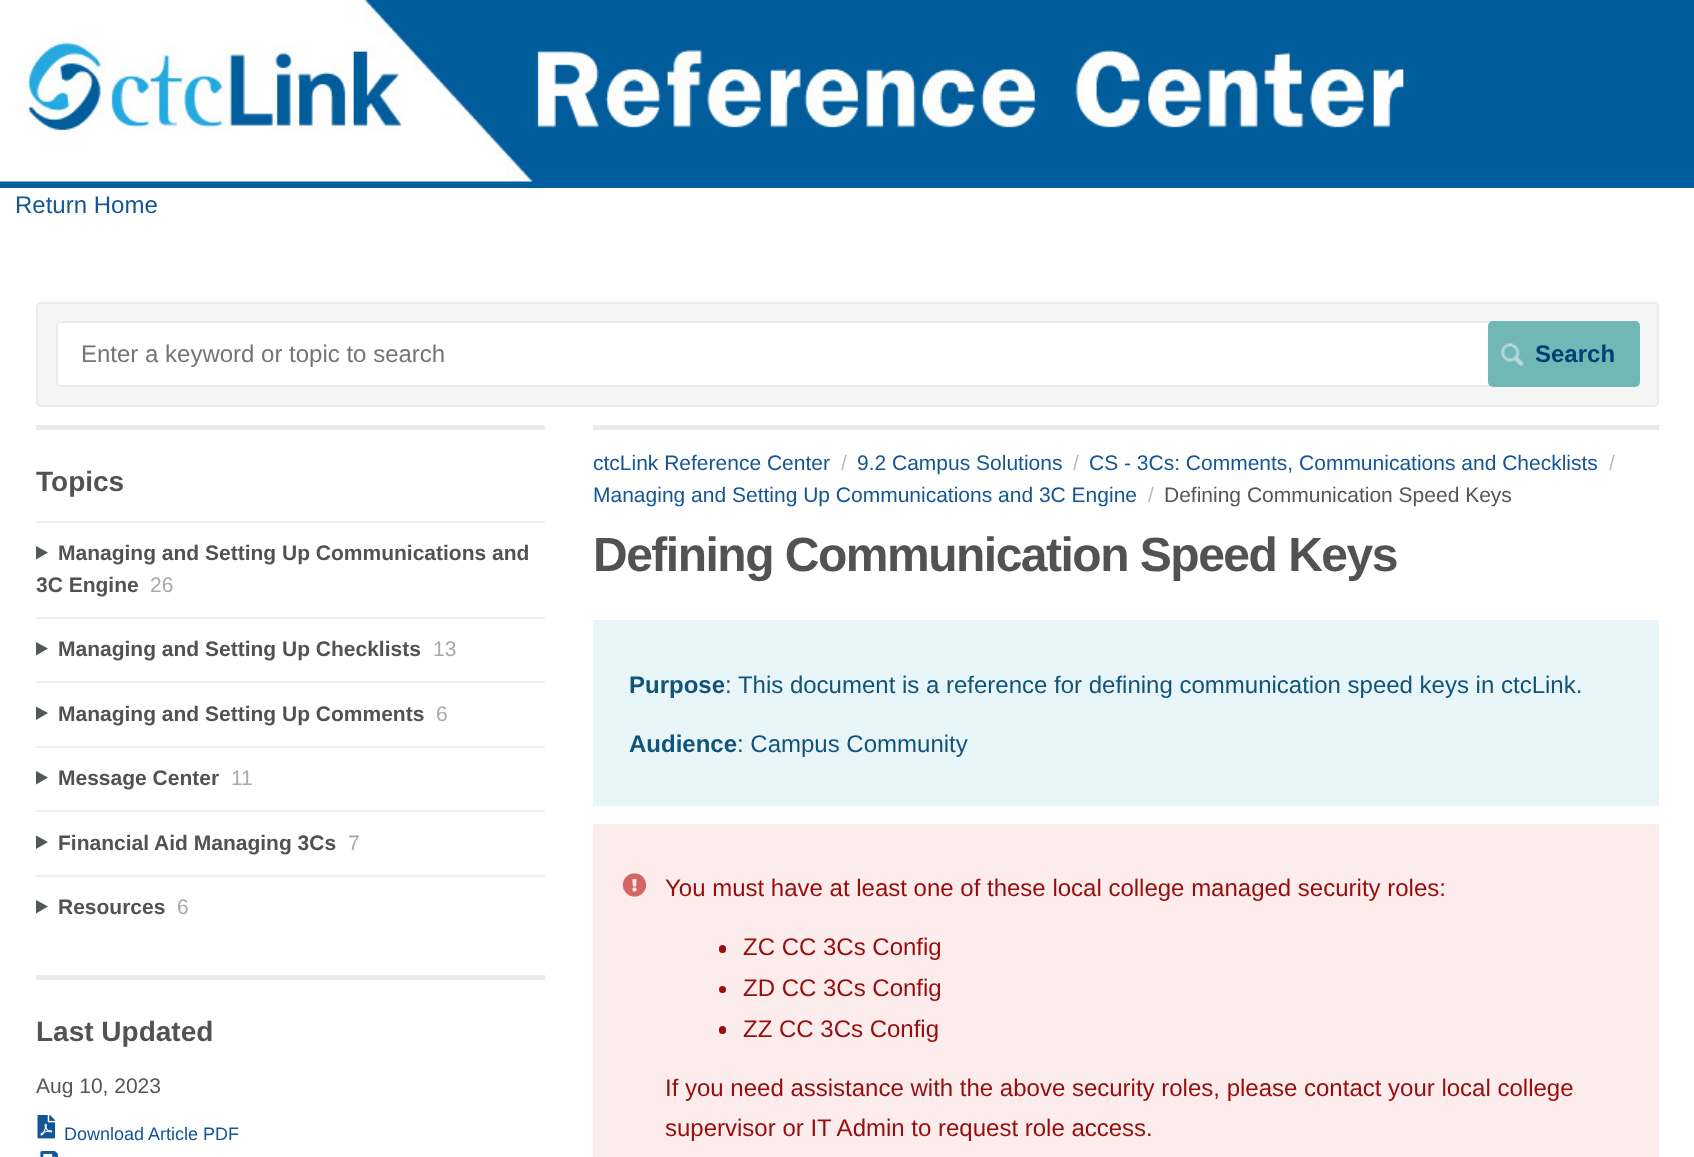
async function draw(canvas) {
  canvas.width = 1694
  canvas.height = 1157
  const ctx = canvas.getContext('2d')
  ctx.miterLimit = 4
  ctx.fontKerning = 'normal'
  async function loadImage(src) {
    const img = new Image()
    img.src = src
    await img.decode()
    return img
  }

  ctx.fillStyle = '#fff'
  ctx.fillRect(0, 0, 1694, 1157)
  ctx.fillStyle = '#005e9c'
  ctx.fillRect(0, 0, 1694, 188)
  ctx.drawImage(await loadImage('image0.png'), 0, 0, 1404, 182)
  ctx.font = '24px Liberation Sans'
  ctx.fillStyle = '#155596'
  ctx.fillText('Return Home', 15, 213)
  ctx.fillStyle = '#f5f5f5'
  ctx.beginPath()
  ctx.roundRect(37, 303, 1621, 103, 4)
  ctx.fill()
  ctx.strokeStyle = '#ebebeb'
  ctx.lineWidth = 2
  ctx.stroke()
  ctx.fillStyle = '#fff'
  ctx.beginPath()
  ctx.roundRect(57, 322, 1582, 64, 4)
  ctx.fill()
  ctx.stroke()
  ctx.fillStyle = '#757575'
  ctx.fillText('Enter a keyword or topic to search', 81, 362)
  ctx.fillStyle = '#71b7b5'
  ctx.beginPath()
  ctx.roundRect(1488, 321, 152, 66, 5)
  ctx.fill()
  ctx.drawImage(await loadImage('image1.png'), 1500, 343, 24, 23)
  ctx.font = 'bold 24px Liberation Sans'
  ctx.fillStyle = '#003f75'
  ctx.fillText('Search', 1535, 362)
  ctx.fillStyle = '#ebebeb'
  ctx.fillRect(36, 425, 509, 5)
  ctx.font = 'bold 28px Liberation Sans'
  ctx.fillStyle = '#525252'
  ctx.fillText('Topics', 36, 491)
  ctx.fillStyle = '#f0f0f0'
  ctx.fillRect(36, 521, 509, 2)
  ctx.fillStyle = '#515857'
  ctx.beginPath()
  ctx.moveTo(36, 546)
  ctx.lineTo(48, 552.5)
  ctx.lineTo(36, 559.5)
  ctx.closePath()
  ctx.fill()
  ctx.font = 'bold 21px Liberation Sans'
  ctx.fillStyle = '#525252'
  ctx.fillText('Managing and Setting Up Communications and', 58, 560)
  ctx.fillText('3C Engine', 36, 592)
  ctx.font = '21px Liberation Sans'
  ctx.fillStyle = '#a9a9a9'
  ctx.fillText('26', 150, 592)
  ctx.fillStyle = '#f0f0f0'
  ctx.fillRect(36, 617, 509, 2)
  ctx.fillStyle = '#515857'
  ctx.beginPath()
  ctx.moveTo(36, 642)
  ctx.lineTo(48, 648.5)
  ctx.lineTo(36, 655.5)
  ctx.closePath()
  ctx.fill()
  ctx.font = 'bold 21px Liberation Sans'
  ctx.fillStyle = '#525252'
  ctx.fillText('Managing and Setting Up Checklists', 58, 656)
  ctx.font = '21px Liberation Sans'
  ctx.fillStyle = '#a9a9a9'
  ctx.fillText('13', 433, 656)
  ctx.fillStyle = '#f0f0f0'
  ctx.fillRect(36, 681, 509, 2)
  ctx.fillStyle = '#515857'
  ctx.beginPath()
  ctx.moveTo(36, 706.5)
  ctx.lineTo(48, 713)
  ctx.lineTo(36, 720)
  ctx.closePath()
  ctx.fill()
  ctx.font = 'bold 21px Liberation Sans'
  ctx.fillStyle = '#525252'
  ctx.fillText('Managing and Setting Up Comments', 58, 721)
  ctx.font = '21px Liberation Sans'
  ctx.fillStyle = '#a9a9a9'
  ctx.fillText('6', 436, 721)
  ctx.fillStyle = '#f0f0f0'
  ctx.fillRect(36, 746, 509, 2)
  ctx.fillStyle = '#515857'
  ctx.beginPath()
  ctx.moveTo(36, 771)
  ctx.lineTo(48, 777.5)
  ctx.lineTo(36, 784.5)
  ctx.closePath()
  ctx.fill()
  ctx.font = 'bold 21px Liberation Sans'
  ctx.fillStyle = '#525252'
  ctx.fillText('Message Center', 58, 785)
  ctx.font = '21px Liberation Sans'
  ctx.fillStyle = '#a9a9a9'
  ctx.fillText('11', 231, 785)
  ctx.fillStyle = '#f0f0f0'
  ctx.fillRect(36, 810, 509, 2)
  ctx.fillStyle = '#515857'
  ctx.beginPath()
  ctx.moveTo(36, 835.5)
  ctx.lineTo(48, 842)
  ctx.lineTo(36, 849)
  ctx.closePath()
  ctx.fill()
  ctx.font = 'bold 21px Liberation Sans'
  ctx.fillStyle = '#525252'
  ctx.fillText('Financial Aid Managing 3Cs', 58, 850)
  ctx.font = '21px Liberation Sans'
  ctx.fillStyle = '#a9a9a9'
  ctx.fillText('7', 348, 850)
  ctx.fillStyle = '#f0f0f0'
  ctx.fillRect(36, 875, 509, 2)
  ctx.fillStyle = '#515857'
  ctx.beginPath()
  ctx.moveTo(36, 900)
  ctx.lineTo(48, 906.5)
  ctx.lineTo(36, 913.5)
  ctx.closePath()
  ctx.fill()
  ctx.font = 'bold 21px Liberation Sans'
  ctx.fillStyle = '#525252'
  ctx.fillText('Resources', 58, 914)
  ctx.font = '21px Liberation Sans'
  ctx.fillStyle = '#a9a9a9'
  ctx.fillText('6', 177, 914)
  ctx.fillStyle = '#ebebeb'
  ctx.fillRect(36, 975, 509, 5)
  ctx.font = 'bold 28px Liberation Sans'
  ctx.fillStyle = '#525252'
  ctx.fillText('Last Updated', 36, 1041)
  ctx.font = '21px Liberation Sans'
  ctx.fillStyle = '#515857'
  ctx.fillText('Aug 10, 2023', 36, 1093)
  ctx.drawImage(await loadImage('image2.png'), 37, 1115, 19, 24)
  ctx.font = '18px Liberation Sans'
  ctx.fillStyle = '#155596'
  ctx.fillText('Download Article PDF', 64, 1140)
  ctx.drawImage(await loadImage('image3.png'), 40, 1151, 18, 6)
  ctx.fillStyle = '#ebebeb'
  ctx.fillRect(593, 425, 1066, 5)
  ctx.font = '21px Liberation Sans'
  ctx.fillStyle = '#155596'
  ctx.fillText('ctcLink Reference Center', 593, 470)
  ctx.fillStyle = '#b8bdbd'
  ctx.fillText('/', 841, 470)
  ctx.fillStyle = '#155596'
  ctx.fillText('9.2 Campus Solutions', 857, 470)
  ctx.fillStyle = '#b8bdbd'
  ctx.fillText('/', 1073, 470)
  ctx.fillStyle = '#155596'
  ctx.fillText('CS - 3Cs: Comments, Communications and Checklists', 1089, 470)
  ctx.fillStyle = '#b8bdbd'
  ctx.fillText('/', 1609, 470)
  ctx.fillStyle = '#155596'
  ctx.fillText('Managing and Setting Up Communications and 3C Engine', 593, 502)
  ctx.fillStyle = '#b8bdbd'
  ctx.fillText('/', 1148, 502)
  ctx.fillStyle = '#515857'
  ctx.fillText('Defining Communication Speed Keys', 1164, 502)
  ctx.letterSpacing = '-1.5px'
  ctx.font = 'bold 48px Liberation Sans'
  ctx.fillStyle = '#525252'
  ctx.fillText('Defining Communication Speed Keys', 593, 571)
  ctx.fillStyle = '#e8f5f9'
  ctx.fillRect(593, 620, 1066, 186)
  ctx.letterSpacing = '0px'
  ctx.font = 'bold 24px Liberation Sans'
  ctx.fillStyle = '#115478'
  ctx.fillText('Purpose', 629, 693)
  ctx.font = '24px Liberation Sans'
  ctx.fillText(': This document is a reference for defining communication speed keys in ctcLink.', 725, 693)
  ctx.font = 'bold 24px Liberation Sans'
  ctx.fillText('Audience', 629, 752)
  ctx.font = '24px Liberation Sans'
  ctx.fillText(': Campus Community', 737, 752)
  ctx.fillStyle = '#fdecec'
  ctx.fillRect(593, 824, 1066, 333)
  ctx.drawImage(await loadImage('image4.png'), 622, 873, 25, 24)
  ctx.fillStyle = '#970c0c'
  ctx.fillText('You must have at least one of these local college managed security roles:', 665, 896)
  ctx.beginPath()
  ctx.roundRect(719, 945, 7, 8, 3.5)
  ctx.fill()
  ctx.fillText('ZC CC 3Cs Config', 743, 955)
  ctx.beginPath()
  ctx.arc(722.5, 989.5, 3.5, 0, 2 * Math.PI)
  ctx.fill()
  ctx.fillText('ZD CC 3Cs Config', 743, 996)
  ctx.beginPath()
  ctx.roundRect(719, 1026, 7, 8, 3.5)
  ctx.fill()
  ctx.fillText('ZZ CC 3Cs Config', 743, 1037)
  ctx.fillText('If you need assistance with the above security roles, please contact your local college', 665, 1096)
  ctx.fillText('supervisor or IT Admin to request role access.', 665, 1136)
}

draw(document.querySelector('canvas'))
